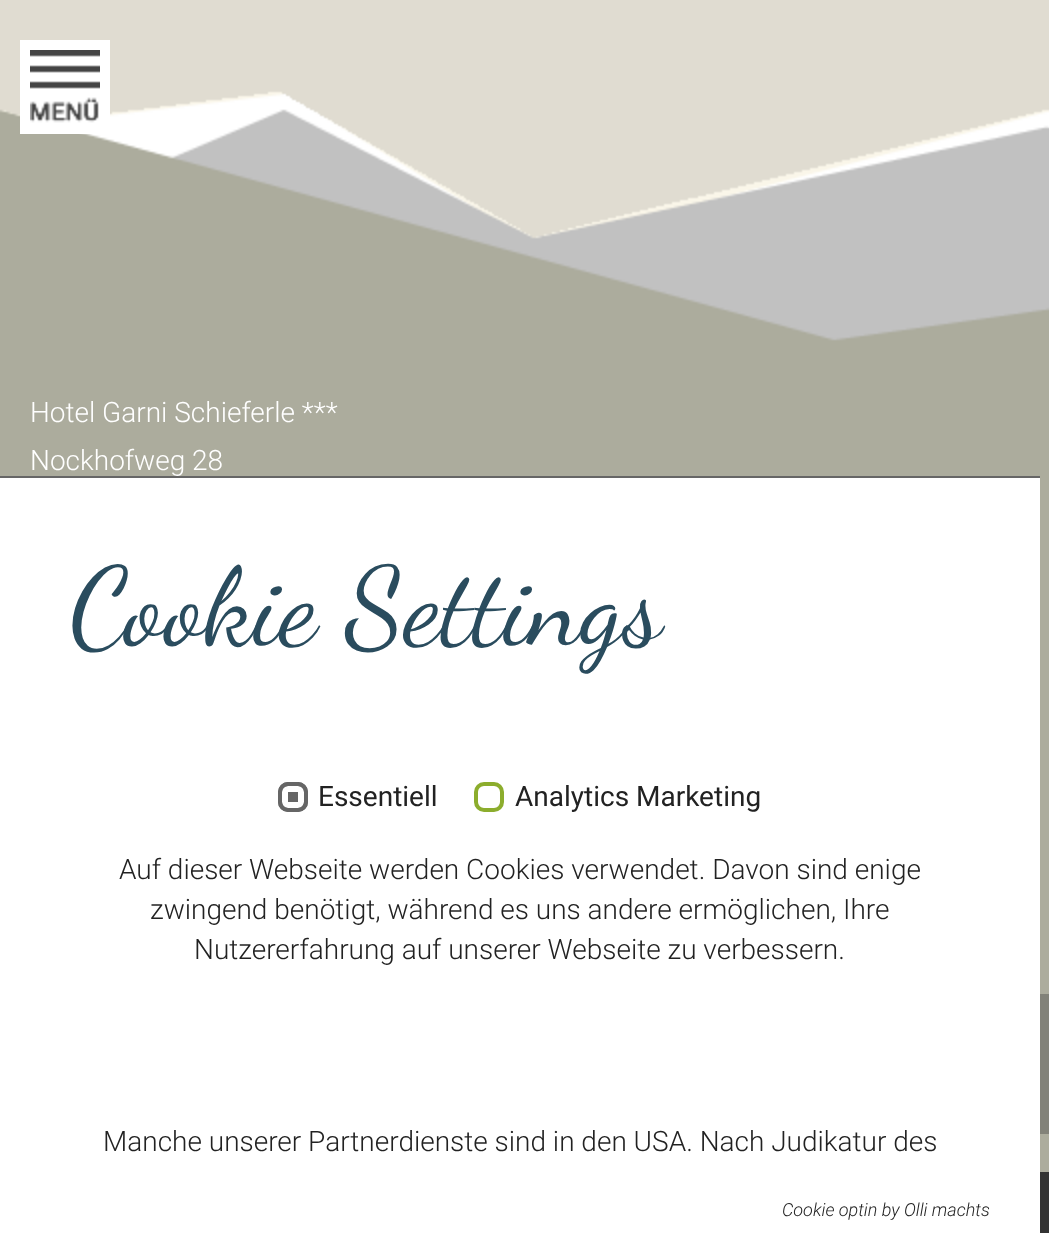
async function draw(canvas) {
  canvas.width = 1049
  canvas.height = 1233
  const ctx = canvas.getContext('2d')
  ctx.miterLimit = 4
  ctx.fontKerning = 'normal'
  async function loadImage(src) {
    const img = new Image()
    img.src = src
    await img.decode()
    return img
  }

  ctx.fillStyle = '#e0dcd1'
  ctx.fillRect(0, 0, 1049, 1233)
  ctx.drawImage(await loadImage('image1.png'), 0, 91, 1049, 289)
  ctx.fillStyle = '#fff'
  ctx.fillRect(20, 40, 90, 94)
  ctx.drawImage(await loadImage('image0.png'), 30, 50, 70, 73)
  ctx.fillStyle = '#acac9d'
  ctx.fillRect(0, 380, 1049, 792)
  ctx.font = '300 28px Roboto'
  ctx.fillStyle = '#fff'
  ctx.fillText('Hotel Garni Schieferle ***', 30, 422)
  ctx.fillText('Nockhofweg 28', 30, 470)
  ctx.fillStyle = '#828279'
  ctx.fillRect(1040, 994, 9, 140)
  ctx.fillStyle = '#333'
  ctx.fillRect(1040, 1172, 9, 61)
  ctx.fillStyle = '#fff'
  ctx.fillRect(0, 478, 1040, 755)
  ctx.fillStyle = '#666'
  ctx.fillRect(0, 476, 1040, 2)
  ctx.font = '110px Dancing Script'
  ctx.fillStyle = '#2a4c5e'
  ctx.fillText('Cookie Settings', 70, 643)
  ctx.fillStyle = '#666'
  ctx.beginPath()
  ctx.roundRect(278, 782, 30, 30, 10)
  ctx.fill()
  ctx.beginPath()
  ctx.roundRect(285, 789, 16, 16, 3)
  ctx.strokeStyle = '#fff'
  ctx.lineWidth = 6
  ctx.stroke()
  ctx.beginPath()
  ctx.roundRect(280, 784, 26, 26, 8)
  ctx.strokeStyle = '#666'
  ctx.lineWidth = 4
  ctx.stroke()
  ctx.font = '28px Roboto'
  ctx.fillStyle = '#222'
  ctx.fillText('Essentiell', 318, 806)
  ctx.beginPath()
  ctx.roundRect(476, 784, 26, 26, 8)
  ctx.strokeStyle = '#8cad2d'
  ctx.stroke()
  ctx.fillText('Analytics Marketing', 515, 806)
  ctx.font = '300 28px Roboto'
  ctx.fillText('Auf dieser Webseite werden Cookies verwendet. Davon sind enige', 119, 879)
  ctx.fillText('zwingend benötigt, während es uns andere ermöglichen, Ihre', 150, 919)
  ctx.fillText('Nutzererfahrung auf unserer Webseite zu verbessern.', 194, 959)
  ctx.fillText('Manche unserer Partnerdienste sind in den USA. Nach Judikatur des', 103, 1151)
  ctx.font = 'italic 300 18px Roboto'
  ctx.fillText('Cookie optin by Olli machts', 782, 1216)
}

draw(document.querySelector('canvas'))
